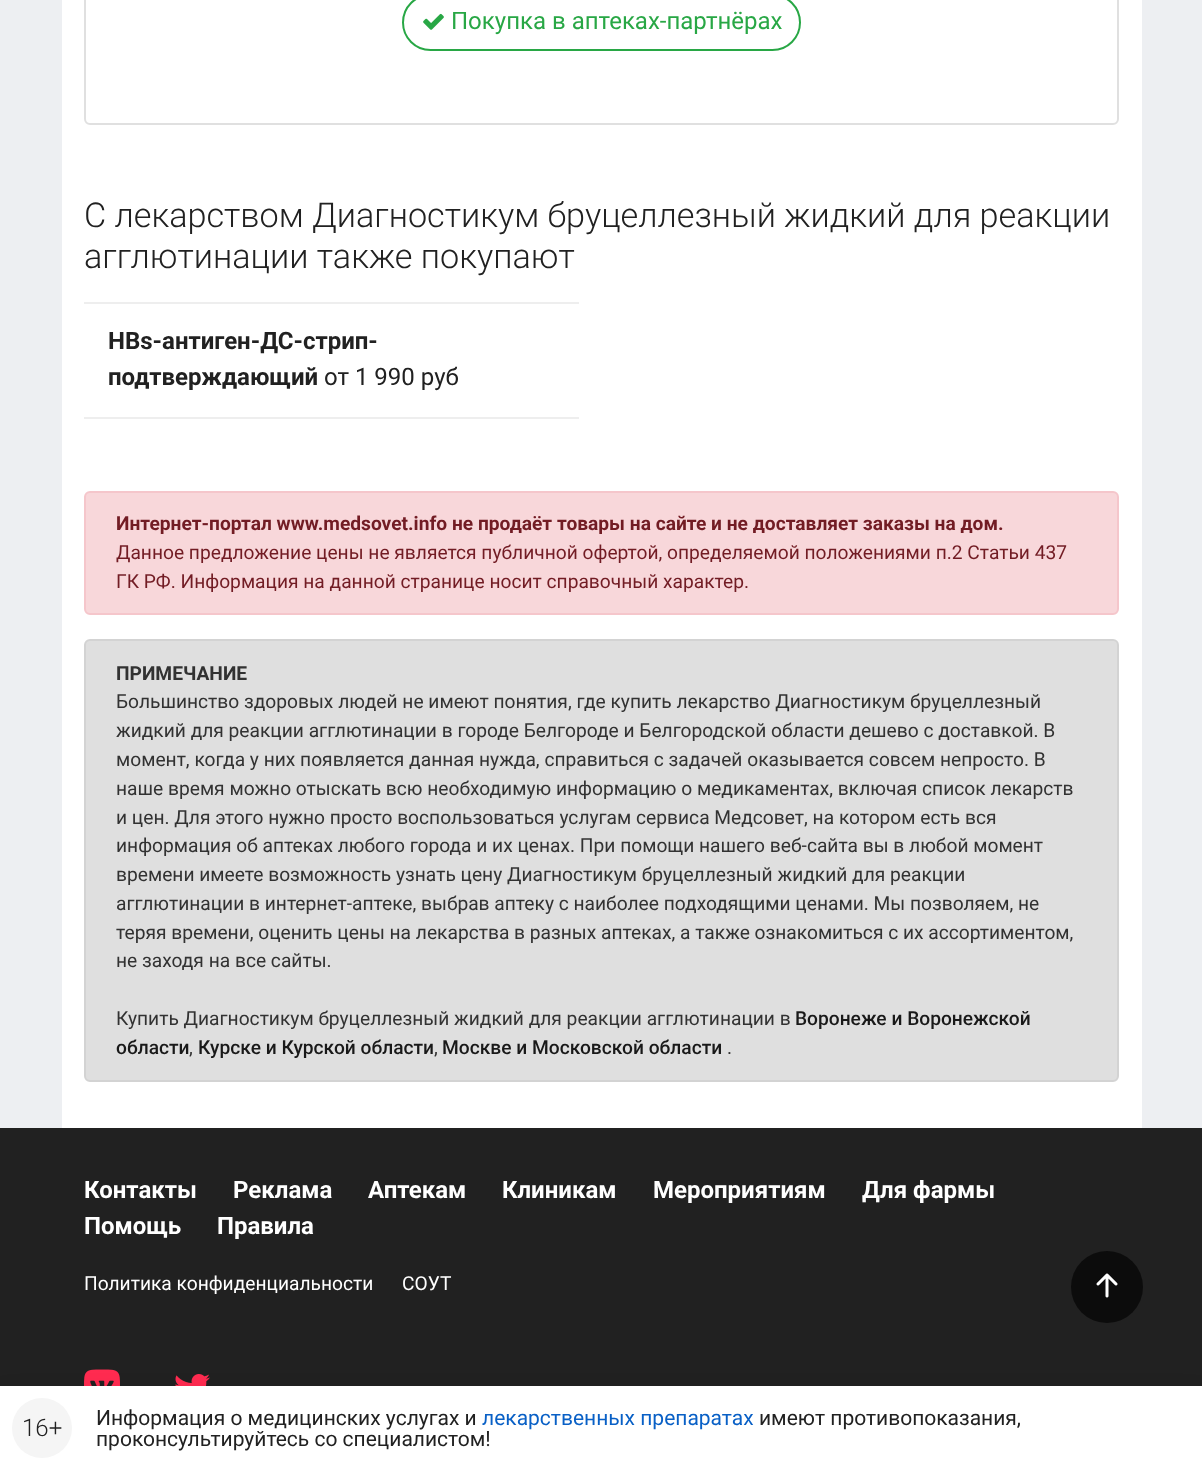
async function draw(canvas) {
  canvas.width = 1202
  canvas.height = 1470
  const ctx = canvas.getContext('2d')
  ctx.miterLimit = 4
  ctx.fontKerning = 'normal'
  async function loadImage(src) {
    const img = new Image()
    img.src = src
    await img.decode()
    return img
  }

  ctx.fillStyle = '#edeff2'
  ctx.fillRect(0, 0, 1202, 1470)
  ctx.fillStyle = '#fff'
  ctx.fillRect(62, 0, 1080, 1128)
  ctx.beginPath()
  ctx.roundRect(85, -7, 1033, 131, 5)
  ctx.strokeStyle = '#e0e0e0'
  ctx.lineWidth = 2
  ctx.stroke()
  ctx.beginPath()
  ctx.roundRect(403, -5, 397, 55, 27.5)
  ctx.strokeStyle = '#28a745'
  ctx.stroke()
  ctx.drawImage(await loadImage('image0.png'), 423, 13, 21, 17)
  ctx.font = '24px Roboto'
  ctx.fillStyle = '#28a745'
  ctx.fillText('Покупка в аптеках-партнёрах', 451, 29)
  ctx.font = '300 34.2px Roboto'
  ctx.fillStyle = '#212121'
  ctx.fillText('С лекарством Диагностикум бруцеллезный жидкий для реакции', 84, 227)
  ctx.fillText('агглютинации также покупают', 84, 268)
  ctx.fillStyle = '#eee'
  ctx.fillRect(84, 417, 495, 2)
  ctx.fillRect(84, 302, 495, 2)
  ctx.font = 'bold 24px Roboto'
  ctx.fillStyle = '#212121'
  ctx.fillText('HBs-антиген-ДС-стрип-', 108, 349)
  ctx.fillText('подтверждающий', 108, 385)
  ctx.font = '24px Roboto'
  ctx.fillText('от 1 990 руб', 324, 385)
  ctx.fillStyle = '#f8d7da'
  ctx.beginPath()
  ctx.roundRect(85, 492, 1033, 122, 5)
  ctx.fill()
  ctx.strokeStyle = '#f5c6cb'
  ctx.stroke()
  ctx.font = 'bold 19.2px Roboto'
  ctx.fillStyle = '#721c24'
  ctx.fillText('Интернет-портал www.medsovet.info не продаёт товары на сайте и не доставляет заказы на дом.', 116, 530)
  ctx.font = '19.2px Roboto'
  ctx.fillText('Данное предложение цены не является публичной офертой, определяемой положениями п.2 Статьи 437', 116, 559)
  ctx.fillText('ГК РФ. Информация на данной странице носит справочный характер.', 116, 588)
  ctx.fillStyle = '#dfdfdf'
  ctx.beginPath()
  ctx.roundRect(85, 640, 1033, 441, 5)
  ctx.fill()
  ctx.strokeStyle = '#d3d3d3'
  ctx.stroke()
  ctx.font = 'bold 19.2px Roboto'
  ctx.fillStyle = '#323232'
  ctx.fillText('ПРИМЕЧАНИЕ', 116, 680)
  ctx.font = '19.2px Roboto'
  ctx.fillText('Большинство здоровых людей не имеют понятия, где купить лекарство Диагностикум бруцеллезный', 116, 708)
  ctx.fillText('жидкий для реакции агглютинации в городе Белгороде и Белгородской области дешево с доставкой. В', 116, 737)
  ctx.fillText('момент, когда у них появляется данная нужда, справиться с задачей оказывается совсем непросто. В', 116, 766)
  ctx.fillText('наше время можно отыскать всю необходимую информацию о медикаментах, включая список лекарств', 116, 795)
  ctx.fillText('и цен. Для этого нужно просто воспользоваться услугам сервиса Медсовет, на котором есть вся', 116, 824)
  ctx.fillText('информация об аптеках любого города и их ценах. При помощи нашего веб-сайта вы в любой момент', 116, 852)
  ctx.fillText('времени имеете возможность узнать цену Диагностикум бруцеллезный жидкий для реакции', 116, 881)
  ctx.fillText('агглютинации в интернет-аптеке, выбрав аптеку с наиболее подходящими ценами. Мы позволяем, не', 116, 910)
  ctx.fillText('теряя времени, оценить цены на лекарства в разных аптеках, а также ознакомиться с их ассортиментом,', 116, 939)
  ctx.fillText('не заходя на все сайты.', 116, 967)
  ctx.fillText('Купить Диагностикум бруцеллезный жидкий для реакции агглютинации в', 116, 1025)
  ctx.font = '500 19.2px Roboto'
  ctx.fillStyle = '#191919'
  ctx.fillText('Воронеже и Воронежской', 795, 1025)
  ctx.fillText('области', 116, 1054)
  ctx.font = '19.2px Roboto'
  ctx.fillStyle = '#323232'
  ctx.fillText(',', 189, 1054)
  ctx.font = '500 19.2px Roboto'
  ctx.fillStyle = '#191919'
  ctx.fillText('Курске и Курской области', 198, 1054)
  ctx.font = '19.2px Roboto'
  ctx.fillStyle = '#323232'
  ctx.fillText(',', 434, 1054)
  ctx.font = '500 19.2px Roboto'
  ctx.fillStyle = '#191919'
  ctx.fillText('Москве и Московской области', 442, 1054)
  ctx.font = '19.2px Roboto'
  ctx.fillStyle = '#323232'
  ctx.fillText('.', 727, 1054)
  ctx.fillStyle = '#212121'
  ctx.fillRect(0, 1128, 1202, 258)
  ctx.font = 'bold 24px Roboto'
  ctx.fillStyle = '#fff'
  ctx.fillText('Контакты', 84, 1198)
  ctx.fillText('Реклама', 233, 1198)
  ctx.fillText('Аптекам', 368, 1198)
  ctx.fillText('Клиникам', 502, 1198)
  ctx.fillText('Мероприятиям', 653, 1198)
  ctx.fillText('Для фармы', 862, 1198)
  ctx.fillText('Помощь', 84, 1234)
  ctx.fillText('Правила', 217, 1234)
  ctx.font = '19.2px Roboto'
  ctx.fillText('Политика конфиденциальности', 84, 1290)
  ctx.fillText('СОУТ', 402, 1290)
  ctx.drawImage(await loadImage('image1.png'), 84, 1369, 36, 17)
  ctx.drawImage(await loadImage('image2.png'), 175, 1374, 35, 12)
  ctx.fillStyle = '#0c0c0c'
  ctx.beginPath()
  ctx.arc(1107, 1287, 36, 0, 2 * Math.PI)
  ctx.fill()
  ctx.drawImage(await loadImage('image3.png'), 1096, 1273, 22, 25)
  ctx.fillStyle = '#00000026'
  ctx.filter = 'blur(12px)'
  ctx.beginPath()
  ctx.rect(0, 1398, 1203, 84)
  ctx.fill()
  ctx.filter = 'none'
  ctx.fillStyle = '#fff'
  ctx.fillRect(0, 1386, 1202, 84)
  ctx.fillStyle = '#f5f5f5'
  ctx.beginPath()
  ctx.arc(42, 1428, 30, 0, 2 * Math.PI)
  ctx.fill()
  ctx.font = '300 24px Roboto'
  ctx.fillStyle = '#212121'
  ctx.fillText('16+', 22, 1436)
  ctx.font = '21px Roboto'
  ctx.fillText('Информация о медицинских услугах и', 96, 1425)
  ctx.fillStyle = '#0960c6'
  ctx.fillText('лекарственных препаратах', 482, 1425)
  ctx.fillStyle = '#212121'
  ctx.fillText('имеют противопоказания,', 759, 1425)
  ctx.fillText('проконсультируйтесь со специалистом!', 96, 1446)
}

draw(document.querySelector('canvas'))
